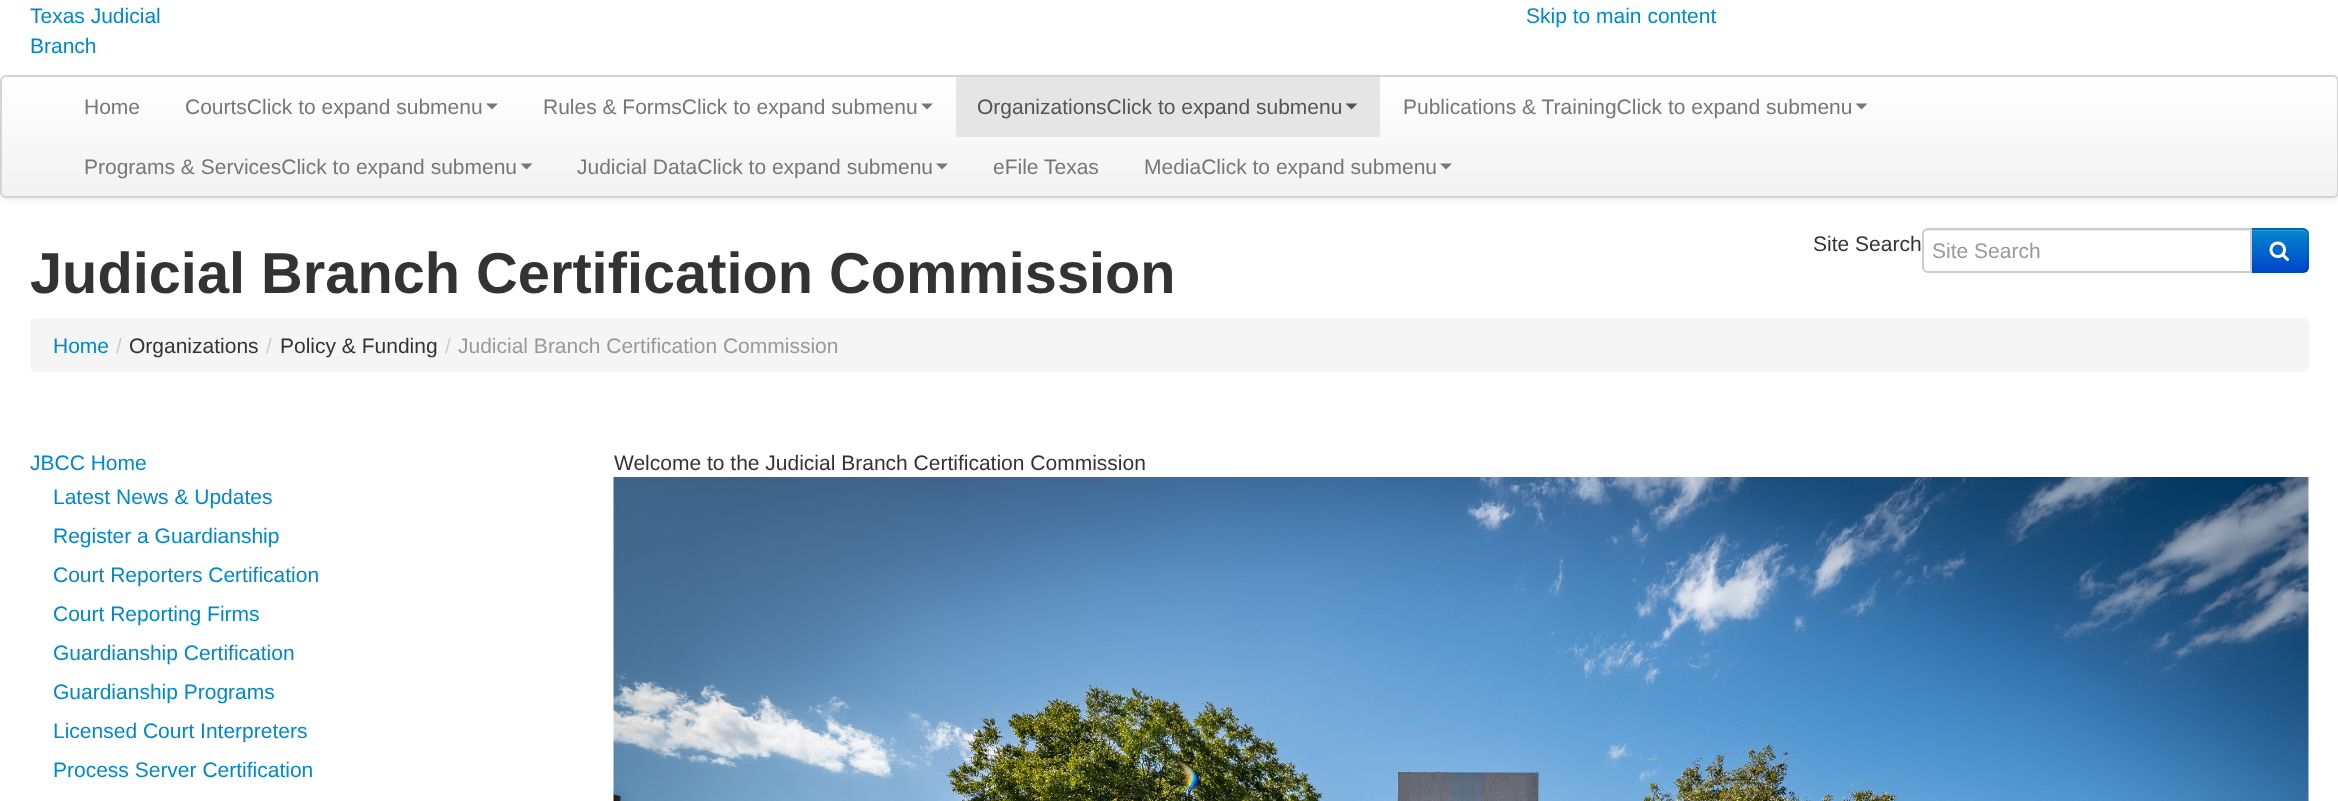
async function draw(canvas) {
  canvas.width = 2338
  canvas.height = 801
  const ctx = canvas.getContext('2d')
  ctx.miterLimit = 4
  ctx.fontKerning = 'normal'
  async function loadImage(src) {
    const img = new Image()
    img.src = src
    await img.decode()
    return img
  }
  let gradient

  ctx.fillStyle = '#fff'
  ctx.fillRect(0, 0, 2338, 801)
  ctx.font = '21px Liberation Sans'
  ctx.fillStyle = '#08c'
  ctx.fillText('Texas Judicial', 30, 23)
  ctx.fillText('Branch', 30, 53)
  ctx.fillText('Skip to main content', 1526, 23)
  ctx.fillStyle = '#00000012'
  ctx.filter = 'blur(3px)'
  ctx.beginPath()
  ctx.roundRect(0, 77, 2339, 123, 6)
  ctx.fill()
  ctx.filter = 'none'
  ctx.save()
  ctx.beginPath()
  ctx.roundRect(0, 75, 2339, 123, 6)
  ctx.clip()
  gradient = ctx.createLinearGradient(1169, 76, 1169, 197)
  gradient.addColorStop(0, '#fff')
  gradient.addColorStop(1, '#f2f2f2')
  ctx.fillStyle = gradient
  ctx.fillRect(0, 77, 2338, 120)
  ctx.restore()
  ctx.beginPath()
  ctx.roundRect(1, 76, 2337, 121, 5)
  ctx.strokeStyle = '#d4d4d4'
  ctx.lineWidth = 2
  ctx.stroke()
  ctx.fillStyle = '#777'
  ctx.fillText('Home', 84, 114)
  ctx.fillText('CourtsClick to expand submenu', 185, 114)
  ctx.beginPath()
  ctx.moveTo(486, 103.5)
  ctx.lineTo(498, 103.5)
  ctx.lineTo(492, 109.5)
  ctx.closePath()
  ctx.fill()
  ctx.fillText('Rules & FormsClick to expand submenu', 543, 114)
  ctx.beginPath()
  ctx.moveTo(921, 103.5)
  ctx.lineTo(933, 103.5)
  ctx.lineTo(927, 109.5)
  ctx.closePath()
  ctx.fill()
  ctx.fillStyle = '#e5e5e5'
  ctx.fillRect(956, 77, 424, 60)
  ctx.fillStyle = '#555'
  ctx.fillText('OrganizationsClick to expand submenu', 977, 114)
  ctx.beginPath()
  ctx.moveTo(1345.5, 103.5)
  ctx.lineTo(1357.5, 103.5)
  ctx.lineTo(1351.5, 109.5)
  ctx.closePath()
  ctx.fill()
  ctx.fillStyle = '#777'
  ctx.fillText('Publications & TrainingClick to expand submenu', 1403, 114)
  ctx.beginPath()
  ctx.moveTo(1855.5, 103.5)
  ctx.lineTo(1867.5, 103.5)
  ctx.lineTo(1861.5, 109.5)
  ctx.closePath()
  ctx.fill()
  ctx.fillText('Programs & ServicesClick to expand submenu', 84, 174)
  ctx.beginPath()
  ctx.moveTo(520.5, 163.5)
  ctx.lineTo(532.5, 163.5)
  ctx.lineTo(526.5, 169.5)
  ctx.closePath()
  ctx.fill()
  ctx.fillText('Judicial DataClick to expand submenu', 577, 174)
  ctx.beginPath()
  ctx.moveTo(936, 163.5)
  ctx.lineTo(948, 163.5)
  ctx.lineTo(942, 169.5)
  ctx.closePath()
  ctx.fill()
  ctx.fillText('eFile Texas', 993, 174)
  ctx.fillText('MediaClick to expand submenu', 1144, 174)
  ctx.beginPath()
  ctx.moveTo(1440, 163.5)
  ctx.lineTo(1452, 163.5)
  ctx.lineTo(1446, 169.5)
  ctx.closePath()
  ctx.fill()
  ctx.fillStyle = '#333'
  ctx.fillText('Site Search', 1813, 251)
  ctx.fillStyle = '#0000000d'
  ctx.filter = 'blur(1.5px)'
  ctx.beginPath()
  ctx.roundRect(2250, 230, 59, 45, 6)
  ctx.fill()
  ctx.filter = 'none'
  ctx.fillStyle = '#006dcc'
  ctx.beginPath()
  ctx.roundRect(2250, 228, 59, 45, [0, 6, 6, 0])
  ctx.fill()
  ctx.save()
  ctx.beginPath()
  ctx.roundRect(2250, 228, 59, 45, [0, 6, 6, 0])
  ctx.clip()
  gradient = ctx.createLinearGradient(2279, 230, 2279, 272)
  gradient.addColorStop(0, '#08c')
  gradient.addColorStop(1, '#04c')
  ctx.fillStyle = gradient
  ctx.fillRect(2252, 230, 57, 42)
  ctx.restore()
  ctx.fillStyle = '#339fd6'
  ctx.beginPath()
  ctx.moveTo(2252, 231)
  ctx.lineTo(2302, 231)
  ctx.bezierCurveTo(2305, 231, 2307, 233, 2307, 236)
  ctx.lineTo(2307, 235)
  ctx.bezierCurveTo(2307, 232, 2305, 230, 2302, 230)
  ctx.lineTo(2252, 230)
  ctx.closePath()
  ctx.fill()
  ctx.fillStyle = '#0000001a'
  ctx.beginPath()
  ctx.moveTo(2250, 228)
  ctx.lineTo(2252, 230)
  ctx.lineTo(2302, 230)
  ctx.bezierCurveTo(2303, 230, 2305, 230, 2305, 231)
  ctx.lineTo(2307, 230)
  ctx.bezierCurveTo(2306, 229, 2304, 228, 2302, 228)
  ctx.closePath()
  ctx.fill()
  ctx.beginPath()
  ctx.moveTo(2307, 230)
  ctx.bezierCurveTo(2308, 231, 2308, 233, 2308, 234)
  ctx.lineTo(2308, 267)
  ctx.bezierCurveTo(2308, 268, 2308, 270, 2307, 271)
  ctx.lineTo(2306, 270)
  ctx.bezierCurveTo(2307, 269, 2307, 268, 2307, 267)
  ctx.lineTo(2307, 234)
  ctx.bezierCurveTo(2307, 233, 2306, 232, 2305, 231)
  ctx.closePath()
  ctx.fill()
  ctx.fillStyle = '#00000040'
  ctx.beginPath()
  ctx.moveTo(2302, 273)
  ctx.bezierCurveTo(2304, 273, 2306, 272, 2307, 271)
  ctx.lineTo(2306, 270)
  ctx.lineTo(2303, 272)
  ctx.lineTo(2252, 272)
  ctx.lineTo(2252, 271)
  ctx.lineTo(2250, 273)
  ctx.closePath()
  ctx.fill()
  ctx.fillStyle = '#fff'
  ctx.beginPath()
  ctx.roundRect(1922, 228, 330, 45, [6, 0, 0, 6])
  ctx.fill()
  ctx.fillStyle = '#ececec'
  ctx.beginPath()
  ctx.moveTo(1928, 231)
  ctx.lineTo(2250, 231)
  ctx.lineTo(2250, 230)
  ctx.lineTo(1928, 230)
  ctx.bezierCurveTo(1925, 230, 1923, 233, 1923, 236)
  ctx.bezierCurveTo(1923, 233, 1925, 231, 1928, 231)
  ctx.closePath()
  ctx.fill()
  ctx.beginPath()
  ctx.roundRect(1923, 229, 328, 43, [5, 0, 0, 5])
  ctx.strokeStyle = '#ccc'
  ctx.stroke()
  ctx.fillStyle = '#999'
  ctx.fillText('Site Search', 1932, 258)
  ctx.drawImage(await loadImage('image0.png'), 2269, 241, 20, 20)
  ctx.font = 'bold 57.75px Liberation Sans'
  ctx.fillStyle = '#333'
  ctx.fillText('Judicial Branch Certification Commission', 30, 293)
  ctx.fillStyle = '#f5f5f5'
  ctx.beginPath()
  ctx.roundRect(30, 318, 2279, 54, 6)
  ctx.fill()
  ctx.font = '21px Liberation Sans'
  ctx.fillStyle = '#08c'
  ctx.fillText('Home', 53, 353)
  ctx.fillStyle = '#ccc'
  ctx.fillText('/', 116, 353)
  ctx.fillStyle = '#333'
  ctx.fillText('Organizations', 129, 353)
  ctx.fillStyle = '#ccc'
  ctx.fillText('/', 266, 353)
  ctx.fillStyle = '#333'
  ctx.fillText('Policy & Funding', 280, 353)
  ctx.fillStyle = '#ccc'
  ctx.fillText('/', 445, 353)
  ctx.fillStyle = '#999'
  ctx.fillText('Judicial Branch Certification Commission', 458, 353)
  ctx.fillStyle = '#08c'
  ctx.fillText('JBCC Home', 30, 470)
  ctx.fillText('Latest News & Updates', 53, 504)
  ctx.fillText('Register a Guardianship', 53, 543)
  ctx.fillText('Court Reporters Certification', 53, 582)
  ctx.fillText('Court Reporting Firms', 53, 621)
  ctx.fillText('Guardianship Certification', 53, 660)
  ctx.fillText('Guardianship Programs', 53, 699)
  ctx.fillText('Licensed Court Interpreters', 53, 738)
  ctx.fillText('Process Server Certification', 53, 777)
  ctx.fillStyle = '#333'
  ctx.fillText('Welcome to the Judicial Branch Certification Commission', 614, 470)
  ctx.drawImage(await loadImage('image1.png'), 613, 477, 1696, 324)
}

draw(document.querySelector('canvas'))
